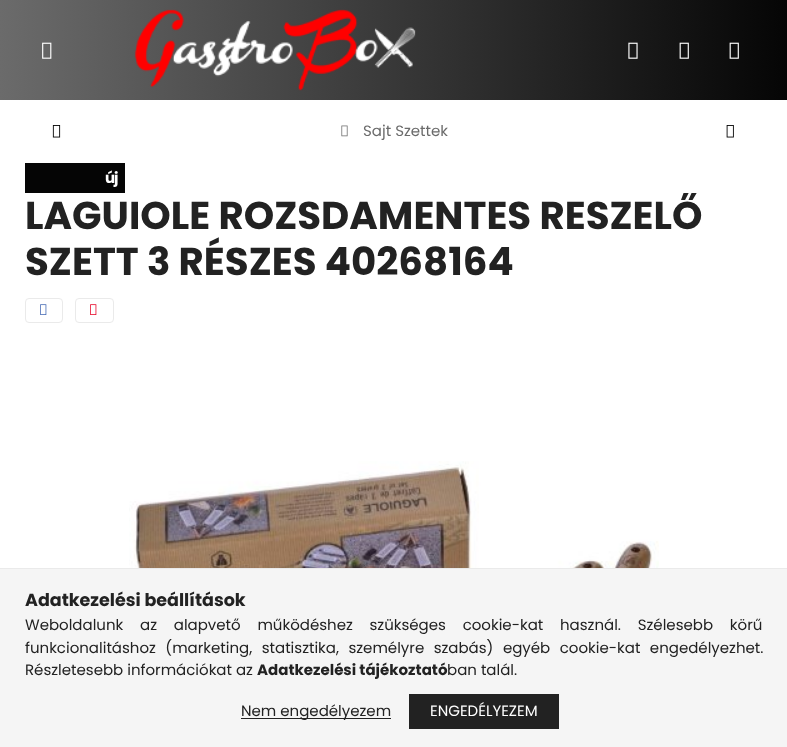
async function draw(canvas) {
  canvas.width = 787
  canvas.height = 747
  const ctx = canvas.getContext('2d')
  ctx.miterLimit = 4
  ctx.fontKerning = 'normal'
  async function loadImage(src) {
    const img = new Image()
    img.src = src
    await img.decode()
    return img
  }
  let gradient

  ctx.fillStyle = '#fff'
  ctx.fillRect(0, 0, 787, 747)
  gradient = ctx.createLinearGradient(0, 50, 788, 50)
  gradient.addColorStop(0, '#6b6b6b')
  gradient.addColorStop(1, '#050505')
  ctx.fillStyle = gradient
  ctx.fillRect(0, 0, 787, 100)
  ctx.drawImage(await loadImage('image0.png'), 42, 42, 10, 17)
  ctx.drawImage(await loadImage('image1.png'), 134, 9, 282, 82)
  ctx.drawImage(await loadImage('image2.png'), 628, 42, 10, 17)
  ctx.drawImage(await loadImage('image3.png'), 679, 42, 10, 17)
  ctx.drawImage(await loadImage('image4.png'), 729, 42, 10, 17)
  ctx.drawImage(await loadImage('image5.png'), 52, 125, 9, 13)
  ctx.drawImage(await loadImage('image6.png'), 341, 125, 7, 12)
  ctx.font = '15px Poppins'
  ctx.fillStyle = '#6b6b6b'
  ctx.fillText('Sajt Szettek', 363, 136)
  ctx.drawImage(await loadImage('image7.png'), 726, 125, 8, 13)
  ctx.fillStyle = '#050505'
  ctx.fillRect(25, 163, 100, 30)
  ctx.letterSpacing = '-1px'
  ctx.font = 'bold 15px Poppins'
  ctx.fillStyle = '#fff'
  ctx.fillText('új', 105, 183)
  ctx.save()
  ctx.beginPath()
  ctx.rect(25, 193, 738, 92)
  ctx.clip()
  ctx.letterSpacing = '0px'
  ctx.font = 'bold 38.75px Poppins'
  ctx.fillStyle = '#222'
  ctx.fillText('LAGUIOLE ROZSDAMENTES RESZELŐ', 25, 229)
  ctx.restore()
  ctx.letterSpacing = '0px'
  ctx.font = 'bold 38.75px Poppins'
  ctx.fillStyle = '#222'
  ctx.fillText('SZETT 3 RÉSZES 40268164', 25, 275)
  ctx.beginPath()
  ctx.roundRect(25.5, 298.5, 37, 24, 3.5)
  ctx.strokeStyle = '#eaeaea'
  ctx.stroke()
  ctx.drawImage(await loadImage('image8.png'), 40, 304, 7, 11)
  ctx.beginPath()
  ctx.roundRect(75.5, 298.5, 38, 24, 3.5)
  ctx.stroke()
  ctx.drawImage(await loadImage('image9.png'), 90, 304, 7, 11)
  ctx.drawImage(await loadImage('image10.png'), 129, 461, 530, 107)
  ctx.fillStyle = '#f5f5f5'
  ctx.fillRect(0, 569, 787, 178)
  ctx.fillStyle = '#eaeaea'
  ctx.fillRect(0, 568, 787, 1)
  ctx.font = 'bold 17.5px Poppins'
  ctx.fillStyle = '#222'
  ctx.fillText('Adatkezelési beállítások', 25, 606)
  ctx.wordSpacing = '12.75px'
  ctx.font = '15px Poppins'
  ctx.fillText('Weboldalunk az alapvető működéshez szükséges cookie-kat használ. Szélesebb körű', 25, 630)
  ctx.wordSpacing = '5.5px'
  ctx.fillText('funkcionalitáshoz (marketing, statisztika, személyre szabás) egyéb cookie-kat engedélyezhet.', 25, 653)
  ctx.wordSpacing = '0px'
  ctx.fillText('Részletesebb információkat az', 25, 675)
  ctx.font = 'bold 15px Poppins'
  ctx.fillText('Adatkezelési tájékoztató', 257, 675)
  ctx.font = '15px Poppins'
  ctx.fillText('ban talál.', 447, 675)
  ctx.fillRect(241, 718, 150, 1)
  ctx.fillText('Nem engedélyezem', 241, 716)
  gradient = ctx.createLinearGradient(109, 711, 559, 711)
  gradient.addColorStop(0, '#6b6b6b')
  gradient.addColorStop(0.33, '#050505')
  gradient.addColorStop(0.67, '#222')
  gradient.addColorStop(1, '#222')
  ctx.fillStyle = gradient
  ctx.fillRect(409, 694, 150, 35)
  ctx.fillStyle = '#fff'
  ctx.fillText('ENGEDÉLYEZEM', 430, 716)
}

draw(document.querySelector('canvas'))
